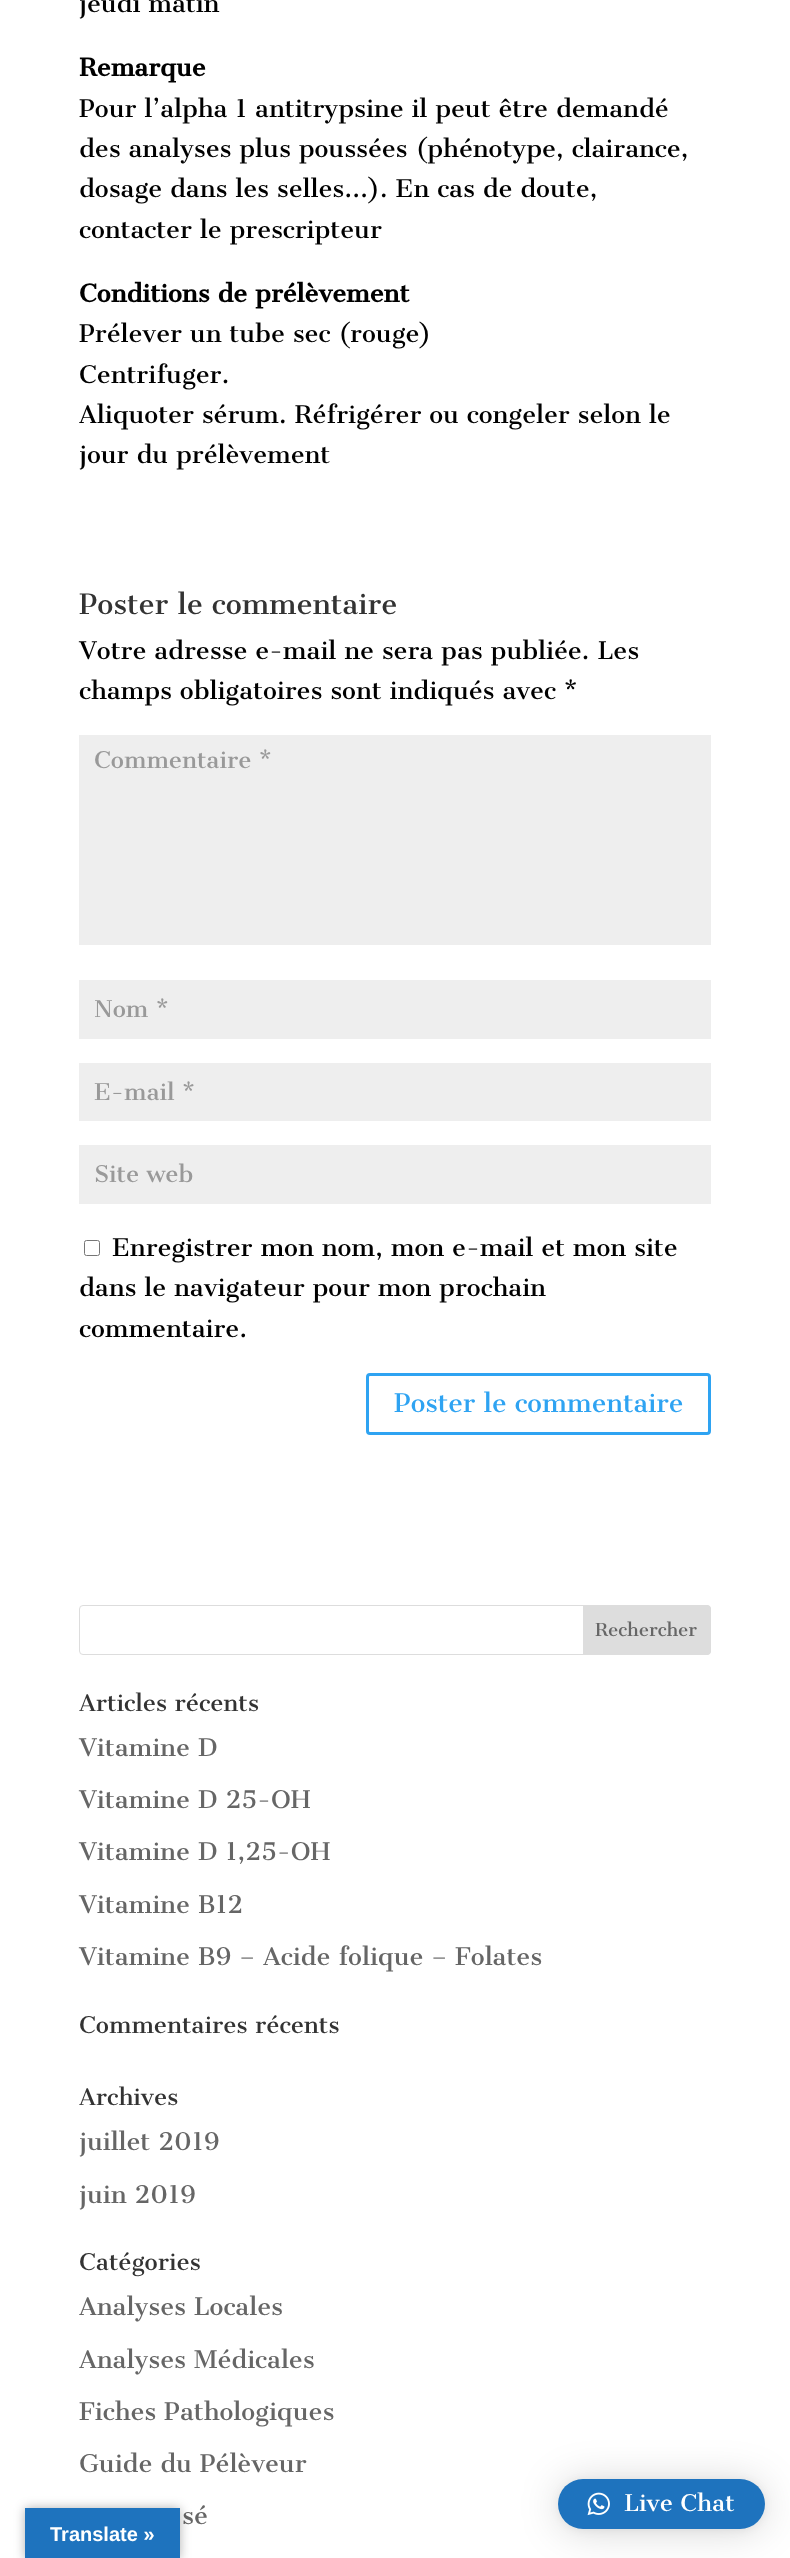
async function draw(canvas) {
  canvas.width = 790
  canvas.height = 2558
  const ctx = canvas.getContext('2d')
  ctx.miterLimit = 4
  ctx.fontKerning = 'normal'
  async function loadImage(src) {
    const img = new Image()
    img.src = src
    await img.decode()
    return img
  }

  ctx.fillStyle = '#fff'
  ctx.fillRect(0, 0, 790, 2558)
  ctx.font = '23.75px Cantata One'
  ctx.fillStyle = '#000'
  ctx.fillText('jeudi matin', 79, 12)
  ctx.font = 'bold 23.75px Cantata One'
  ctx.fillText('Remarque', 79, 76)
  ctx.font = '23.75px Cantata One'
  ctx.fillText('Pour l’alpha 1 antitrypsine il peut être demandé', 79, 117)
  ctx.fillText('des analyses plus poussées (phénotype, clairance,', 79, 157)
  ctx.fillText('dosage dans les selles…). En cas de doute,', 79, 197)
  ctx.fillText('contacter le prescripteur', 79, 238)
  ctx.font = 'bold 23.75px Cantata One'
  ctx.fillText('Conditions de prélèvement', 79, 302)
  ctx.font = '23.75px Cantata One'
  ctx.fillText('Prélever un tube sec (rouge)', 79, 342)
  ctx.fillText('Centrifuger.', 79, 383)
  ctx.fillText('Aliquoter sérum. Réfrigérer ou congeler selon le', 79, 423)
  ctx.fillText('jour du prélèvement', 79, 463)
  ctx.font = '27.5px Cantata One'
  ctx.fillStyle = '#333'
  ctx.fillText('Poster le commentaire', 79, 614)
  ctx.font = '23.75px Cantata One'
  ctx.fillStyle = '#000'
  ctx.fillText('Votre adresse e-mail ne sera pas publiée. Les', 79, 659)
  ctx.fillText('champs obligatoires sont indiqués avec *', 79, 699)
  ctx.fillStyle = '#eee'
  ctx.fillRect(79, 735, 632, 210)
  ctx.font = '22.5px Cantata One'
  ctx.fillStyle = '#999'
  ctx.fillText('Commentaire *', 94, 768)
  ctx.fillStyle = '#eee'
  ctx.fillRect(79, 980, 632, 59)
  ctx.fillStyle = '#999'
  ctx.fillText('Nom *', 94, 1017)
  ctx.fillStyle = '#eee'
  ctx.fillRect(79, 1063, 632, 58)
  ctx.fillStyle = '#999'
  ctx.fillText('E-mail *', 94, 1100)
  ctx.fillStyle = '#eee'
  ctx.fillRect(79, 1145, 632, 59)
  ctx.fillStyle = '#999'
  ctx.fillText('Site web', 94, 1182)
  ctx.beginPath()
  ctx.roundRect(84.5, 1240.5, 15, 15, 2)
  ctx.strokeStyle = '#767676'
  ctx.stroke()
  ctx.font = '23.75px Cantata One'
  ctx.fillStyle = '#000'
  ctx.fillText('Enregistrer mon nom, mon e-mail et mon site', 112, 1256)
  ctx.fillText('dans le navigateur pour mon prochain', 79, 1296)
  ctx.fillText('commentaire.', 79, 1337)
  ctx.beginPath()
  ctx.roundRect(367.5, 1374.5, 342, 59, 2.5)
  ctx.strokeStyle = '#2ea3f2'
  ctx.lineWidth = 3
  ctx.stroke()
  ctx.font = '25px Cantata One'
  ctx.fillStyle = '#2ea3f2'
  ctx.fillText('Poster le commentaire', 394, 1412)
  ctx.beginPath()
  ctx.roundRect(79.5, 1605.5, 631, 49, 3.5)
  ctx.strokeStyle = '#ddd'
  ctx.lineWidth = 1
  ctx.stroke()
  ctx.fillStyle = '#ddd'
  ctx.beginPath()
  ctx.roundRect(583.5, 1605.5, 127, 49, [0, 3.5, 3.5, 0])
  ctx.fill()
  ctx.stroke()
  ctx.font = '17.5px Cantata One'
  ctx.fillStyle = '#666'
  ctx.fillText('Rechercher', 595, 1636)
  ctx.font = '22.5px Cantata One'
  ctx.fillStyle = '#333'
  ctx.fillText('Articles récents', 79, 1711)
  ctx.font = '23.75px Cantata One'
  ctx.fillStyle = '#666'
  ctx.fillText('Vitamine D', 79, 1756)
  ctx.fillText('Vitamine D 25-OH', 79, 1808)
  ctx.fillText('Vitamine D 1,25-OH', 79, 1860)
  ctx.fillText('Vitamine B12', 79, 1913)
  ctx.fillText('Vitamine B9 – Acide folique – Folates', 79, 1965)
  ctx.font = '22.5px Cantata One'
  ctx.fillStyle = '#333'
  ctx.fillText('Commentaires récents', 79, 2033)
  ctx.fillText('Archives', 79, 2105)
  ctx.font = '23.75px Cantata One'
  ctx.fillStyle = '#666'
  ctx.fillText('juillet 2019', 79, 2150)
  ctx.fillText('juin 2019', 79, 2203)
  ctx.font = '22.5px Cantata One'
  ctx.fillStyle = '#333'
  ctx.fillText('Catégories', 79, 2270)
  ctx.font = '23.75px Cantata One'
  ctx.fillStyle = '#666'
  ctx.fillText('Analyses Locales', 79, 2315)
  ctx.fillText('Analyses Médicales', 79, 2368)
  ctx.fillText('Fiches Pathologiques', 79, 2420)
  ctx.fillText('Guide du Pélèveur', 79, 2472)
  ctx.fillText('sé', 182, 2524)
  ctx.fillStyle = '#00000029'
  ctx.filter = 'blur(20px)'
  ctx.beginPath()
  ctx.roundRect(558, 2481, 207, 50, 25)
  ctx.fill()
  ctx.filter = 'none'
  ctx.fillStyle = '#0000000f'
  ctx.filter = 'blur(4px)'
  ctx.beginPath()
  ctx.roundRect(558, 2480, 207, 50, 25)
  ctx.fill()
  ctx.filter = 'none'
  ctx.fillStyle = '#1e73be'
  ctx.beginPath()
  ctx.roundRect(558, 2479, 207, 50, 25)
  ctx.fill()
  ctx.drawImage(await loadImage('image0.png'), 587, 2492, 23, 24)
  ctx.font = '22.5px Cantata One'
  ctx.fillStyle = '#fff'
  ctx.fillText('Live Chat', 624, 2511)
  ctx.fillStyle = '#0000004d'
  ctx.filter = 'blur(5.5px)'
  ctx.beginPath()
  ctx.rect(25, 2508, 155, 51)
  ctx.fill()
  ctx.filter = 'none'
  ctx.fillStyle = '#1e73be'
  ctx.fillRect(25, 2508, 155, 50)
  ctx.font = 'bold 20px Liberation Sans'
  ctx.fillStyle = '#fff'
  ctx.fillText('Translate »', 50, 2541)
}

draw(document.querySelector('canvas'))
